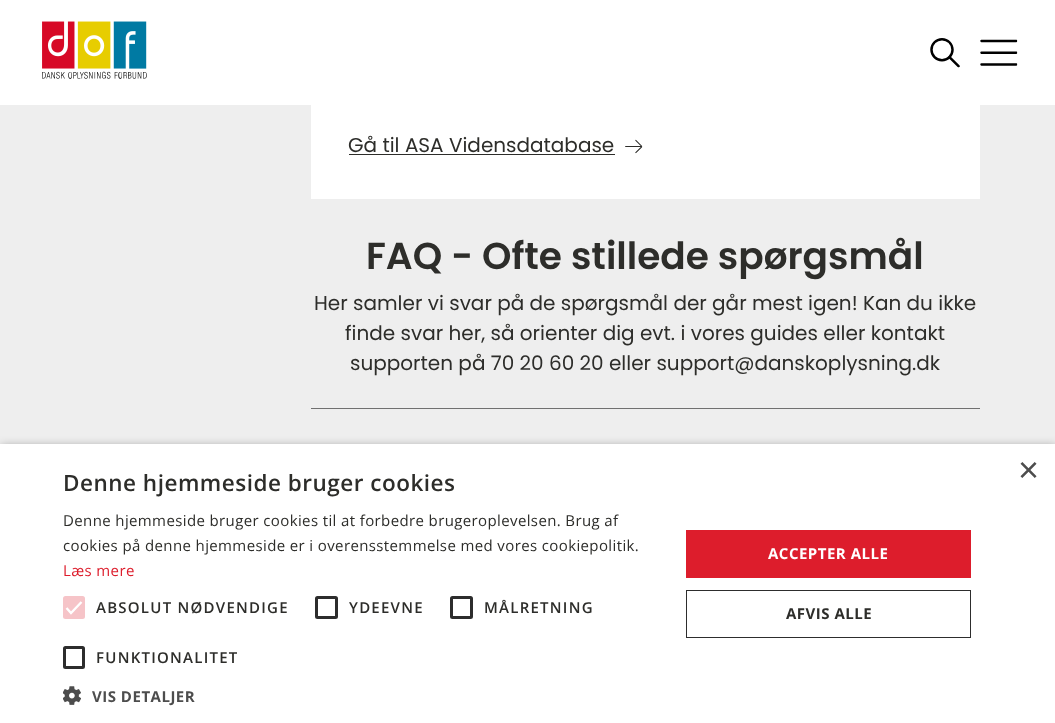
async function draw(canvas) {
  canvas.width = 1055
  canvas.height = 723
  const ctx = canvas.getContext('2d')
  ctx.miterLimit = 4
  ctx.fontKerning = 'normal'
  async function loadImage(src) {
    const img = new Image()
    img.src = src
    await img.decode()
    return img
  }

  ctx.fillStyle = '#eee'
  ctx.fillRect(0, 0, 1055, 723)
  ctx.fillStyle = '#fff'
  ctx.fillRect(0, 0, 1055, 105)
  ctx.drawImage(await loadImage('image0.png'), 42, 21, 105, 58)
  ctx.drawImage(await loadImage('image1.png'), 930, 38, 30, 30)
  ctx.drawImage(await loadImage('image2.png'), 980, 39, 38, 27)
  ctx.fillRect(311, 105, 669, 94)
  ctx.font = '20px Poppins'
  ctx.fillStyle = '#2d2d2a'
  ctx.fillText('Gå til ASA Vidensdatabase', 348, 152)
  ctx.fillRect(349, 154, 266, 1)
  ctx.drawImage(await loadImage('image3.png'), 625, 139, 18, 15)
  ctx.font = '600 37.5px Poppins'
  ctx.fillText('FAQ - Ofte stillede spørgsmål', 366, 269)
  ctx.font = '20px Poppins'
  ctx.fillText('Her samler vi svar på de spørgsmål der går mest igen! Kan du ikke', 314, 310)
  ctx.fillText('finde svar her, så orienter dig evt. i vores guides eller kontakt', 345, 340)
  ctx.fillText('supporten på 70 20 60 20 eller support@danskoplysning.dk', 350, 370)
  ctx.fillStyle = '#707070'
  ctx.fillRect(311, 408, 669, 1)
  ctx.fillStyle = '#00000059'
  ctx.filter = 'blur(5px)'
  ctx.beginPath()
  ctx.rect(1, 446, 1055, 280)
  ctx.fill()
  ctx.filter = 'none'
  ctx.fillStyle = '#fff'
  ctx.fillRect(0, 444, 1055, 279)
  ctx.font = '36px Liberation Sans'
  ctx.fillStyle = '#4d4d4d'
  ctx.fillText('×', 1018, 482)
  ctx.letterSpacing = '0.5px'
  ctx.font = '600 22.5px Open Sans'
  ctx.fillStyle = '#2d2d2a'
  ctx.fillText('Denne hjemmeside bruger cookies', 63, 491)
  ctx.letterSpacing = '0.38px'
  ctx.font = '15px Open Sans'
  ctx.fillText('Denne hjemmeside bruger cookies til at forbedre brugeroplevelsen. Brug af', 63, 526)
  ctx.fillText('cookies på denne hjemmeside er i overensstemmelse med vores cookiepolitik.', 63, 551)
  ctx.fillStyle = '#dd1d2c'
  ctx.fillText('Læs mere', 63, 576)
  ctx.fillStyle = '#f6c4c8'
  ctx.beginPath()
  ctx.roundRect(63, 596, 22, 23, 2.5)
  ctx.fill()
  ctx.beginPath()
  ctx.moveTo(66.5, 608)
  ctx.lineTo(71, 613)
  ctx.lineTo(81.5, 602)
  ctx.strokeStyle = '#fff'
  ctx.lineWidth = 2.3
  ctx.stroke()
  ctx.letterSpacing = '1.25px'
  ctx.font = '600 15px Open Sans'
  ctx.fillStyle = '#2d2d2a'
  ctx.fillText('ABSOLUT NØDVENDIGE', 96, 613)
  ctx.beginPath()
  ctx.roundRect(316.5, 597.5, 20, 20, 1)
  ctx.strokeStyle = '#2d2d2d'
  ctx.lineWidth = 3
  ctx.stroke()
  ctx.fillText('YDEEVNE', 349, 613)
  ctx.beginPath()
  ctx.roundRect(451.5, 597.5, 20, 20, 1)
  ctx.stroke()
  ctx.fillText('MÅLRETNING', 484, 613)
  ctx.beginPath()
  ctx.roundRect(64.5, 647.5, 19, 20, 1)
  ctx.stroke()
  ctx.fillText('FUNKTIONALITET', 96, 663)
  ctx.drawImage(await loadImage('image4.png'), 63, 686, 18, 19)
  ctx.letterSpacing = '0.5px'
  ctx.font = 'bold 15px Open Sans'
  ctx.fillStyle = '#4d4d4d'
  ctx.fillText('VIS DETALJER', 92, 702)
  ctx.fillStyle = '#dd1d2c'
  ctx.fillRect(686, 530, 285, 48)
  ctx.fillStyle = '#fff'
  ctx.fillText('ACCEPTER ALLE', 768, 559)
  ctx.lineWidth = 1
  ctx.strokeRect(686.5, 590.5, 284, 47)
  ctx.fillStyle = '#2d2d2a'
  ctx.fillText('AFVIS ALLE', 786, 619)
}

draw(document.querySelector('canvas'))
